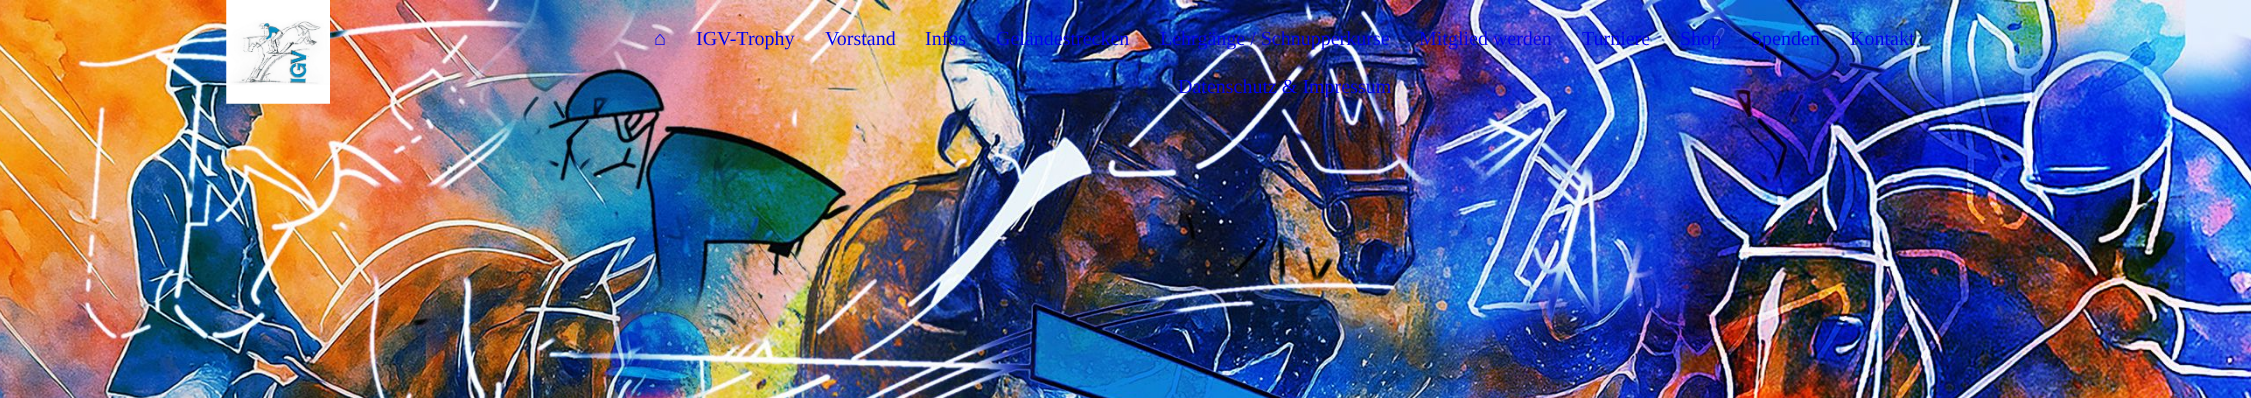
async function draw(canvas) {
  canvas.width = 2251
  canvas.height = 398
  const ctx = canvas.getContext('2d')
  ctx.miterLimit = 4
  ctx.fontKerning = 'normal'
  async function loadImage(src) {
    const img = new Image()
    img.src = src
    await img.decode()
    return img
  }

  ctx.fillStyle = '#fff'
  ctx.fillRect(0, 0, 2251, 398)
  ctx.drawImage(await loadImage('image0.png'), 0, 0, 2251, 398)
  ctx.drawImage(await loadImage('image1.png'), 226, 0, 104, 104)
  ctx.font = '20px Liberation Serif'
  ctx.fillStyle = '#00e'
  ctx.fillText('⌂', 654, 45)
  ctx.fillText('IGV-Trophy', 696, 45)
  ctx.fillText('Vorstand', 825, 45)
  ctx.fillText('Infos', 925, 45)
  ctx.fillText('Geländestrecken', 996, 45)
  ctx.fillText('Lehrgänge / Schnupperkurse', 1160, 45)
  ctx.fillText('Mitglied werden', 1419, 45)
  ctx.fillText('Turniere', 1582, 45)
  ctx.fillText('Shop', 1680, 45)
  ctx.fillText('Spenden', 1751, 45)
  ctx.fillText('Kontakt', 1850, 45)
  ctx.fillText('Datenschutz & Impressum', 1178, 93)
}

draw(document.querySelector('canvas'))
